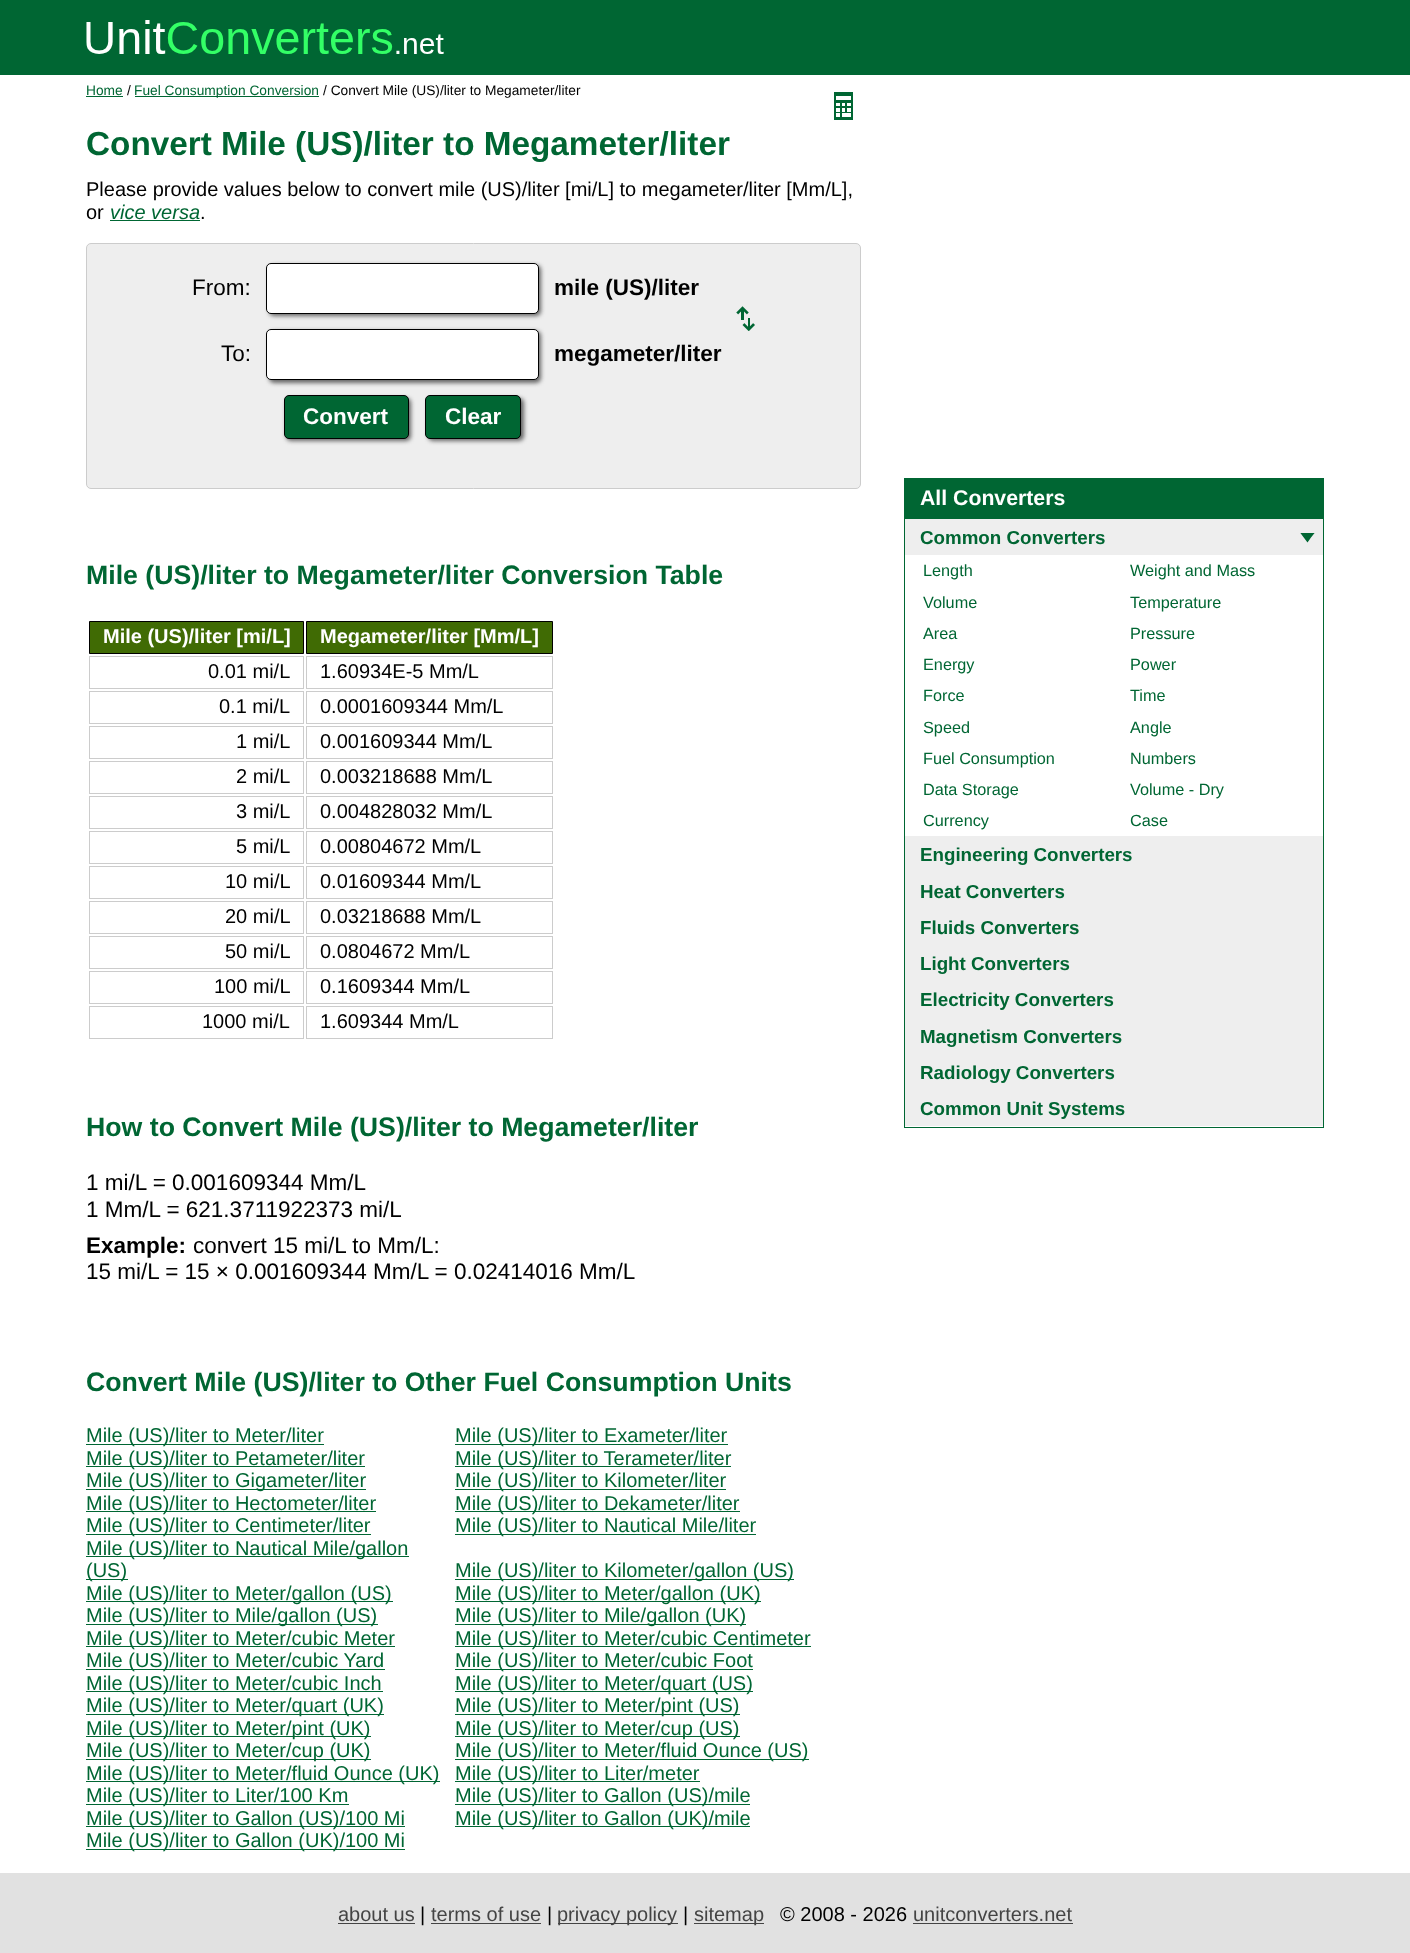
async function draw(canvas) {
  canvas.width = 1410
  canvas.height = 1953
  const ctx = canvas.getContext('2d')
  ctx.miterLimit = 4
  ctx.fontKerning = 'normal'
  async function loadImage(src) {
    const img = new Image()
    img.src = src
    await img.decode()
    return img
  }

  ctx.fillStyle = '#fff'
  ctx.fillRect(0, 0, 1410, 1953)
  ctx.fillStyle = '#063'
  ctx.fillRect(0, 0, 1410, 75)
  ctx.drawImage(await loadImage('image0.png'), 86, 20, 358, 34)
  ctx.font = '13.75px Liberation Sans'
  ctx.fillText('Home', 86, 95)
  ctx.fillRect(86, 96, 37, 1)
  ctx.fillStyle = '#000'
  ctx.fillText('/', 127, 95)
  ctx.fillStyle = '#063'
  ctx.fillRect(135, 96, 184, 1)
  ctx.fillText('Fuel Consumption Conversion', 134, 95)
  ctx.fillStyle = '#000'
  ctx.fillText('/ Convert Mile (US)/liter to Megameter/liter', 323, 95)
  ctx.drawImage(await loadImage('image1.png'), 834, 92, 19, 28)
  ctx.font = 'bold 33.3px Liberation Sans'
  ctx.fillStyle = '#063'
  ctx.fillText('Convert Mile (US)/liter to Megameter/liter', 86, 155)
  ctx.font = '20px Liberation Sans'
  ctx.fillStyle = '#000'
  ctx.fillText('Please provide values below to convert mile (US)/liter [mi/L] to megameter/liter [Mm/L],', 86, 196)
  ctx.fillText('or', 86, 219)
  ctx.font = 'italic 20px Liberation Sans'
  ctx.fillStyle = '#063'
  ctx.fillText('vice versa', 110, 219)
  ctx.fillRect(110, 220, 90, 1)
  ctx.font = '20px Liberation Sans'
  ctx.fillStyle = '#000'
  ctx.fillText('.', 200, 219)
  ctx.fillStyle = '#eee'
  ctx.beginPath()
  ctx.roundRect(86.5, 243.5, 774, 245, 4.5)
  ctx.fill()
  ctx.strokeStyle = '#ccc'
  ctx.stroke()
  ctx.font = '22.5px Liberation Sans'
  ctx.fillStyle = '#000'
  ctx.fillText('From:', 192, 295)
  ctx.fillStyle = '#666'
  ctx.filter = 'blur(2px)'
  ctx.beginPath()
  ctx.roundRect(269, 265, 272, 51, 5)
  ctx.fill()
  ctx.filter = 'none'
  ctx.fillStyle = '#fff'
  ctx.beginPath()
  ctx.roundRect(266.5, 263.5, 272, 50, 4.5)
  ctx.fill()
  ctx.strokeStyle = '#000'
  ctx.stroke()
  ctx.font = 'bold 22.5px Liberation Sans'
  ctx.fillStyle = '#000'
  ctx.fillText('mile (US)/liter', 554, 295)
  ctx.drawImage(await loadImage('image2.png'), 736, 306, 19, 25)
  ctx.font = '22.5px Liberation Sans'
  ctx.fillText('To:', 221, 361)
  ctx.fillStyle = '#666'
  ctx.filter = 'blur(2px)'
  ctx.beginPath()
  ctx.roundRect(269, 331, 272, 52, 5)
  ctx.fill()
  ctx.filter = 'none'
  ctx.fillStyle = '#fff'
  ctx.beginPath()
  ctx.roundRect(266.5, 329.5, 272, 50, 4.5)
  ctx.fill()
  ctx.stroke()
  ctx.font = 'bold 22.5px Liberation Sans'
  ctx.fillStyle = '#000'
  ctx.fillText('megameter/liter', 554, 361)
  ctx.fillStyle = '#666'
  ctx.filter = 'blur(2px)'
  ctx.beginPath()
  ctx.roundRect(286, 398, 125, 43, 5)
  ctx.fill()
  ctx.filter = 'none'
  ctx.fillStyle = '#063'
  ctx.beginPath()
  ctx.roundRect(284.5, 395.5, 124, 43, 4.5)
  ctx.fill()
  ctx.stroke()
  ctx.fillStyle = '#fff'
  ctx.fillText('Convert', 303, 424)
  ctx.fillStyle = '#666'
  ctx.filter = 'blur(2px)'
  ctx.beginPath()
  ctx.roundRect(428, 398, 96, 43, 5)
  ctx.fill()
  ctx.filter = 'none'
  ctx.fillStyle = '#063'
  ctx.beginPath()
  ctx.roundRect(425.5, 395.5, 95, 43, 4.5)
  ctx.fill()
  ctx.stroke()
  ctx.fillStyle = '#fff'
  ctx.fillText('Clear', 445, 424)
  ctx.font = 'bold 26.7px Liberation Sans'
  ctx.fillStyle = '#063'
  ctx.fillText('Mile (US)/liter to Megameter/liter Conversion Table', 86, 584)
  ctx.fillStyle = '#406b04'
  ctx.beginPath()
  ctx.rect(89.5, 621.5, 214, 32)
  ctx.fill()
  ctx.stroke()
  ctx.font = 'bold 20px Liberation Sans'
  ctx.fillStyle = '#fff'
  ctx.fillText('Mile (US)/liter [mi/L]', 103, 643)
  ctx.fillStyle = '#406b04'
  ctx.beginPath()
  ctx.rect(306.5, 621.5, 246, 32)
  ctx.fill()
  ctx.stroke()
  ctx.fillStyle = '#fff'
  ctx.fillText('Megameter/liter [Mm/L]', 320, 643)
  ctx.strokeStyle = '#ccc'
  ctx.strokeRect(89.5, 656.5, 214, 32)
  ctx.font = '20px Liberation Sans'
  ctx.fillStyle = '#000'
  ctx.fillText('0.01 mi/L', 208, 678)
  ctx.strokeRect(306.5, 656.5, 246, 32)
  ctx.fillText('1.60934E-5 Mm/L', 320, 678)
  ctx.strokeRect(89.5, 691.5, 214, 32)
  ctx.fillText('0.1 mi/L', 219, 713)
  ctx.strokeRect(306.5, 691.5, 246, 32)
  ctx.fillText('0.0001609344 Mm/L', 320, 713)
  ctx.strokeRect(89.5, 726.5, 214, 32)
  ctx.fillText('1 mi/L', 236, 748)
  ctx.strokeRect(306.5, 726.5, 246, 32)
  ctx.fillText('0.001609344 Mm/L', 320, 748)
  ctx.strokeRect(89.5, 761.5, 214, 32)
  ctx.fillText('2 mi/L', 236, 783)
  ctx.strokeRect(306.5, 761.5, 246, 32)
  ctx.fillText('0.003218688 Mm/L', 320, 783)
  ctx.strokeRect(89.5, 796.5, 214, 32)
  ctx.fillText('3 mi/L', 236, 818)
  ctx.strokeRect(306.5, 796.5, 246, 32)
  ctx.fillText('0.004828032 Mm/L', 320, 818)
  ctx.strokeRect(89.5, 831.5, 214, 32)
  ctx.fillText('5 mi/L', 236, 853)
  ctx.strokeRect(306.5, 831.5, 246, 32)
  ctx.fillText('0.00804672 Mm/L', 320, 853)
  ctx.strokeRect(89.5, 866.5, 214, 32)
  ctx.fillText('10 mi/L', 225, 888)
  ctx.strokeRect(306.5, 866.5, 246, 32)
  ctx.fillText('0.01609344 Mm/L', 320, 888)
  ctx.strokeRect(89.5, 901.5, 214, 32)
  ctx.fillText('20 mi/L', 225, 923)
  ctx.strokeRect(306.5, 901.5, 246, 32)
  ctx.fillText('0.03218688 Mm/L', 320, 923)
  ctx.strokeRect(89.5, 936.5, 214, 32)
  ctx.fillText('50 mi/L', 225, 958)
  ctx.strokeRect(306.5, 936.5, 246, 32)
  ctx.fillText('0.0804672 Mm/L', 320, 958)
  ctx.strokeRect(89.5, 971.5, 214, 32)
  ctx.fillText('100 mi/L', 214, 993)
  ctx.strokeRect(306.5, 971.5, 246, 32)
  ctx.fillText('0.1609344 Mm/L', 320, 993)
  ctx.strokeRect(89.5, 1006.5, 214, 32)
  ctx.fillText('1000 mi/L', 202, 1028)
  ctx.strokeRect(306.5, 1006.5, 246, 32)
  ctx.fillText('1.609344 Mm/L', 320, 1028)
  ctx.font = 'bold 26.7px Liberation Sans'
  ctx.fillStyle = '#063'
  ctx.fillText('How to Convert Mile (US)/liter to Megameter/liter', 86, 1136)
  ctx.font = '22.5px Liberation Sans'
  ctx.fillStyle = '#000'
  ctx.fillText('1 mi/L = 0.001609344 Mm/L', 86, 1190)
  ctx.fillText('1 Mm/L = 621.3711922373 mi/L', 86, 1217)
  ctx.font = 'bold 22.5px Liberation Sans'
  ctx.fillText('Example:', 86, 1253)
  ctx.font = '22.5px Liberation Sans'
  ctx.fillText('convert 15 mi/L to Mm/L:', 193, 1253)
  ctx.fillText('15 mi/L = 15 × 0.001609344 Mm/L = 0.02414016 Mm/L', 86, 1279)
  ctx.font = 'bold 26.7px Liberation Sans'
  ctx.fillStyle = '#063'
  ctx.fillText('Convert Mile (US)/liter to Other Fuel Consumption Units', 86, 1391)
  ctx.fillRect(86, 1444, 238, 1)
  ctx.font = '20px Liberation Sans'
  ctx.fillText('Mile (US)/liter to Meter/liter', 86, 1442)
  ctx.fillRect(455, 1444, 273, 1)
  ctx.fillText('Mile (US)/liter to Exameter/liter', 455, 1442)
  ctx.fillRect(86, 1466, 279, 1)
  ctx.fillText('Mile (US)/liter to Petameter/liter', 86, 1465)
  ctx.fillRect(455, 1466, 276, 1)
  ctx.fillText('Mile (US)/liter to Terameter/liter', 455, 1465)
  ctx.fillRect(86, 1489, 280, 1)
  ctx.fillText('Mile (US)/liter to Gigameter/liter', 86, 1487)
  ctx.fillRect(455, 1489, 271, 1)
  ctx.fillText('Mile (US)/liter to Kilometer/liter', 455, 1487)
  ctx.fillRect(86, 1511, 290, 1)
  ctx.fillText('Mile (US)/liter to Hectometer/liter', 86, 1510)
  ctx.fillRect(455, 1511, 285, 1)
  ctx.fillText('Mile (US)/liter to Dekameter/liter', 455, 1510)
  ctx.fillRect(86, 1534, 285, 1)
  ctx.fillText('Mile (US)/liter to Centimeter/liter', 86, 1532)
  ctx.fillRect(455, 1534, 301, 1)
  ctx.fillText('Mile (US)/liter to Nautical Mile/liter', 455, 1532)
  ctx.fillRect(86, 1556, 323, 1)
  ctx.fillText('Mile (US)/liter to Nautical Mile/gallon', 86, 1555)
  ctx.fillRect(86, 1579, 42, 1)
  ctx.fillText('(US)', 86, 1577)
  ctx.fillRect(455, 1579, 339, 1)
  ctx.fillText('Mile (US)/liter to Kilometer/gallon (US)', 455, 1577)
  ctx.fillRect(86, 1601, 307, 1)
  ctx.fillText('Mile (US)/liter to Meter/gallon (US)', 86, 1600)
  ctx.fillRect(455, 1601, 306, 1)
  ctx.fillText('Mile (US)/liter to Meter/gallon (UK)', 455, 1600)
  ctx.fillRect(86, 1624, 292, 1)
  ctx.fillText('Mile (US)/liter to Mile/gallon (US)', 86, 1622)
  ctx.fillRect(455, 1624, 291, 1)
  ctx.fillText('Mile (US)/liter to Mile/gallon (UK)', 455, 1622)
  ctx.fillRect(86, 1646, 309, 1)
  ctx.fillText('Mile (US)/liter to Meter/cubic Meter', 86, 1645)
  ctx.fillRect(455, 1646, 356, 1)
  ctx.fillText('Mile (US)/liter to Meter/cubic Centimeter', 455, 1645)
  ctx.fillRect(86, 1669, 299, 1)
  ctx.fillText('Mile (US)/liter to Meter/cubic Yard', 86, 1667)
  ctx.fillRect(455, 1669, 298, 1)
  ctx.fillText('Mile (US)/liter to Meter/cubic Foot', 455, 1667)
  ctx.fillRect(86, 1691, 297, 1)
  ctx.fillText('Mile (US)/liter to Meter/cubic Inch', 86, 1690)
  ctx.fillRect(455, 1691, 298, 1)
  ctx.fillText('Mile (US)/liter to Meter/quart (US)', 455, 1690)
  ctx.fillRect(86, 1714, 298, 1)
  ctx.fillText('Mile (US)/liter to Meter/quart (UK)', 86, 1712)
  ctx.fillRect(455, 1714, 285, 1)
  ctx.fillText('Mile (US)/liter to Meter/pint (US)', 455, 1712)
  ctx.fillRect(86, 1736, 285, 1)
  ctx.fillText('Mile (US)/liter to Meter/pint (UK)', 86, 1735)
  ctx.fillRect(455, 1736, 285, 1)
  ctx.fillText('Mile (US)/liter to Meter/cup (US)', 455, 1735)
  ctx.fillRect(86, 1759, 285, 1)
  ctx.fillText('Mile (US)/liter to Meter/cup (UK)', 86, 1757)
  ctx.fillRect(455, 1759, 354, 1)
  ctx.fillText('Mile (US)/liter to Meter/fluid Ounce (US)', 455, 1757)
  ctx.fillRect(86, 1781, 354, 1)
  ctx.fillText('Mile (US)/liter to Meter/fluid Ounce (UK)', 86, 1780)
  ctx.fillRect(455, 1781, 245, 1)
  ctx.fillText('Mile (US)/liter to Liter/meter', 455, 1780)
  ctx.fillRect(86, 1804, 263, 1)
  ctx.fillText('Mile (US)/liter to Liter/100 Km', 86, 1802)
  ctx.fillRect(455, 1804, 295, 1)
  ctx.fillText('Mile (US)/liter to Gallon (US)/mile', 455, 1802)
  ctx.fillRect(86, 1826, 319, 1)
  ctx.fillText('Mile (US)/liter to Gallon (US)/100 Mi', 86, 1825)
  ctx.fillRect(455, 1826, 295, 1)
  ctx.fillText('Mile (US)/liter to Gallon (UK)/mile', 455, 1825)
  ctx.fillRect(86, 1849, 319, 1)
  ctx.fillText('Mile (US)/liter to Gallon (UK)/100 Mi', 86, 1847)
  ctx.strokeStyle = '#063'
  ctx.strokeRect(904.5, 478.5, 419, 649)
  ctx.fillRect(905, 479, 418, 40)
  ctx.font = 'bold 21.25px Liberation Sans'
  ctx.fillStyle = '#fff'
  ctx.fillText('All Converters', 920, 505)
  ctx.fillStyle = '#eee'
  ctx.fillRect(905, 519, 418, 36)
  ctx.save()
  ctx.beginPath()
  ctx.rect(1300, 533, 15, 10)
  ctx.clip()
  ctx.fillStyle = '#063'
  ctx.beginPath()
  ctx.moveTo(1307.5, 542.5)
  ctx.lineTo(1300, 532.5)
  ctx.lineTo(1315, 532.5)
  ctx.lineTo(1311, 537.5)
  ctx.closePath()
  ctx.fill()
  ctx.restore()
  ctx.font = 'bold 18.75px Liberation Sans'
  ctx.fillStyle = '#063'
  ctx.fillText('Common Converters', 920, 544)
  ctx.font = '16.25px Liberation Sans'
  ctx.fillText('Length', 923, 576)
  ctx.fillText('Weight and Mass', 1130, 576)
  ctx.fillText('Volume', 923, 608)
  ctx.fillText('Temperature', 1130, 608)
  ctx.fillText('Area', 923, 639)
  ctx.fillText('Pressure', 1130, 639)
  ctx.fillText('Energy', 923, 670)
  ctx.fillText('Power', 1130, 670)
  ctx.fillText('Force', 923, 701)
  ctx.fillText('Time', 1130, 701)
  ctx.fillText('Speed', 923, 733)
  ctx.fillText('Angle', 1130, 733)
  ctx.fillText('Fuel Consumption', 923, 764)
  ctx.fillText('Numbers', 1130, 764)
  ctx.fillText('Data Storage', 923, 795)
  ctx.fillText('Volume - Dry', 1130, 795)
  ctx.fillText('Currency', 923, 826)
  ctx.fillText('Case', 1130, 826)
  ctx.fillStyle = '#eee'
  ctx.fillRect(905, 836, 418, 290)
  ctx.font = 'bold 18.75px Liberation Sans'
  ctx.fillStyle = '#063'
  ctx.fillText('Engineering Converters', 920, 861)
  ctx.fillText('Heat Converters', 920, 898)
  ctx.fillText('Fluids Converters', 920, 934)
  ctx.fillText('Light Converters', 920, 970)
  ctx.fillText('Electricity Converters', 920, 1006)
  ctx.fillText('Magnetism Converters', 920, 1043)
  ctx.fillText('Radiology Converters', 920, 1079)
  ctx.fillText('Common Unit Systems', 920, 1115)
  ctx.fillStyle = '#e1e1e1'
  ctx.fillRect(0, 1873, 1410, 80)
  ctx.font = '20px Liberation Sans'
  ctx.fillStyle = '#444'
  ctx.fillText('about us', 338, 1921)
  ctx.fillRect(338, 1923, 77, 1)
  ctx.fillStyle = '#000'
  ctx.fillText('|', 420, 1921)
  ctx.fillStyle = '#444'
  ctx.fillText('terms of use', 431, 1921)
  ctx.fillRect(431, 1923, 110, 1)
  ctx.fillStyle = '#000'
  ctx.fillText('|', 547, 1921)
  ctx.fillStyle = '#444'
  ctx.fillRect(558, 1923, 120, 1)
  ctx.fillText('privacy policy', 557, 1921)
  ctx.fillStyle = '#000'
  ctx.fillText('|', 683, 1921)
  ctx.fillStyle = '#444'
  ctx.fillRect(694, 1923, 70, 1)
  ctx.fillText('sitemap', 694, 1921)
  ctx.fillStyle = '#000'
  ctx.fillText('© 2008 - 2026', 780, 1921)
  ctx.fillStyle = '#444'
  ctx.fillText('unitconverters.net', 913, 1921)
  ctx.fillRect(913, 1923, 160, 1)
}

draw(document.querySelector('canvas'))
